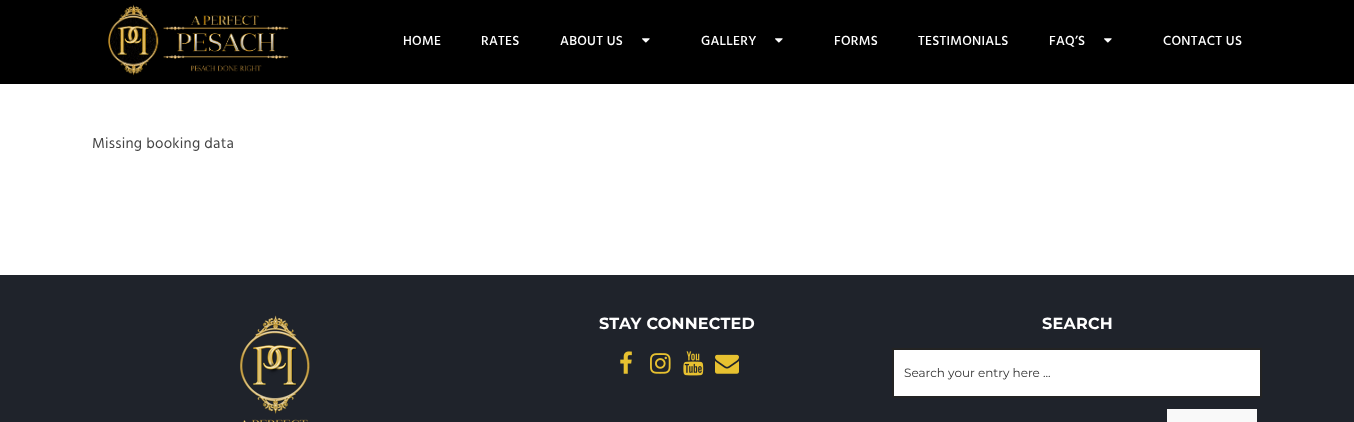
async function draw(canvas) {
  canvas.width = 1354
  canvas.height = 422
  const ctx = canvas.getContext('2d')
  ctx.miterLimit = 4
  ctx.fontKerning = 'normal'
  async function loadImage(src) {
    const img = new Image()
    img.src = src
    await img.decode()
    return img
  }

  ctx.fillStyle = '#fff'
  ctx.fillRect(0, 0, 1354, 422)
  ctx.fillStyle = '#000'
  ctx.fillRect(0, 0, 1354, 84)
  ctx.drawImage(await loadImage('image0.png'), 108, 4, 181, 72)
  ctx.letterSpacing = '0.25px'
  ctx.font = '500 13.5px Hind'
  ctx.fillStyle = '#fff'
  ctx.fillText('HOME', 403, 45)
  ctx.fillText('RATES', 481, 45)
  ctx.fillText('ABOUT US', 560, 45)
  ctx.drawImage(await loadImage('image1.png'), 642, 38, 8, 5)
  ctx.fillText('GALLERY', 701, 45)
  ctx.drawImage(await loadImage('image1.png'), 775, 38, 8, 5)
  ctx.fillText('FORMS', 834, 45)
  ctx.fillText('TESTIMONIALS', 918, 45)
  ctx.fillText('FAQ’S', 1049, 45)
  ctx.drawImage(await loadImage('image1.png'), 1104, 38, 8, 5)
  ctx.fillText('CONTACT US', 1163, 45)
  ctx.font = '15px Hind'
  ctx.fillStyle = '#444'
  ctx.fillText('Missing booking data', 92, 148)
  ctx.fillStyle = '#1f232b'
  ctx.fillRect(0, 275, 1354, 147)
  ctx.drawImage(await loadImage('image2.png'), 240, 315, 70, 107)
  ctx.font = 'bold 16px Montserrat'
  ctx.fillStyle = '#fff'
  ctx.fillText('STAY CONNECTED', 599, 329)
  ctx.drawImage(await loadImage('image3.png'), 620, 351, 12, 23)
  ctx.drawImage(await loadImage('image4.png'), 650, 353, 21, 21)
  ctx.drawImage(await loadImage('image5.png'), 683, 351, 21, 25)
  ctx.drawImage(await loadImage('image6.png'), 715, 354, 24, 20)
  ctx.fillText('SEARCH', 1042, 329)
  ctx.beginPath()
  ctx.rect(893, 349, 368, 48)
  ctx.fill()
  ctx.strokeStyle = '#232323'
  ctx.lineWidth = 2
  ctx.stroke()
  ctx.letterSpacing = '0px'
  ctx.font = '12px Montserrat'
  ctx.fillStyle = '#333'
  ctx.fillText('Search your entry here ...', 904, 377)
  ctx.fillStyle = '#f9f9f9'
  ctx.fillRect(1167, 409, 90, 13)
}

draw(document.querySelector('canvas'))
